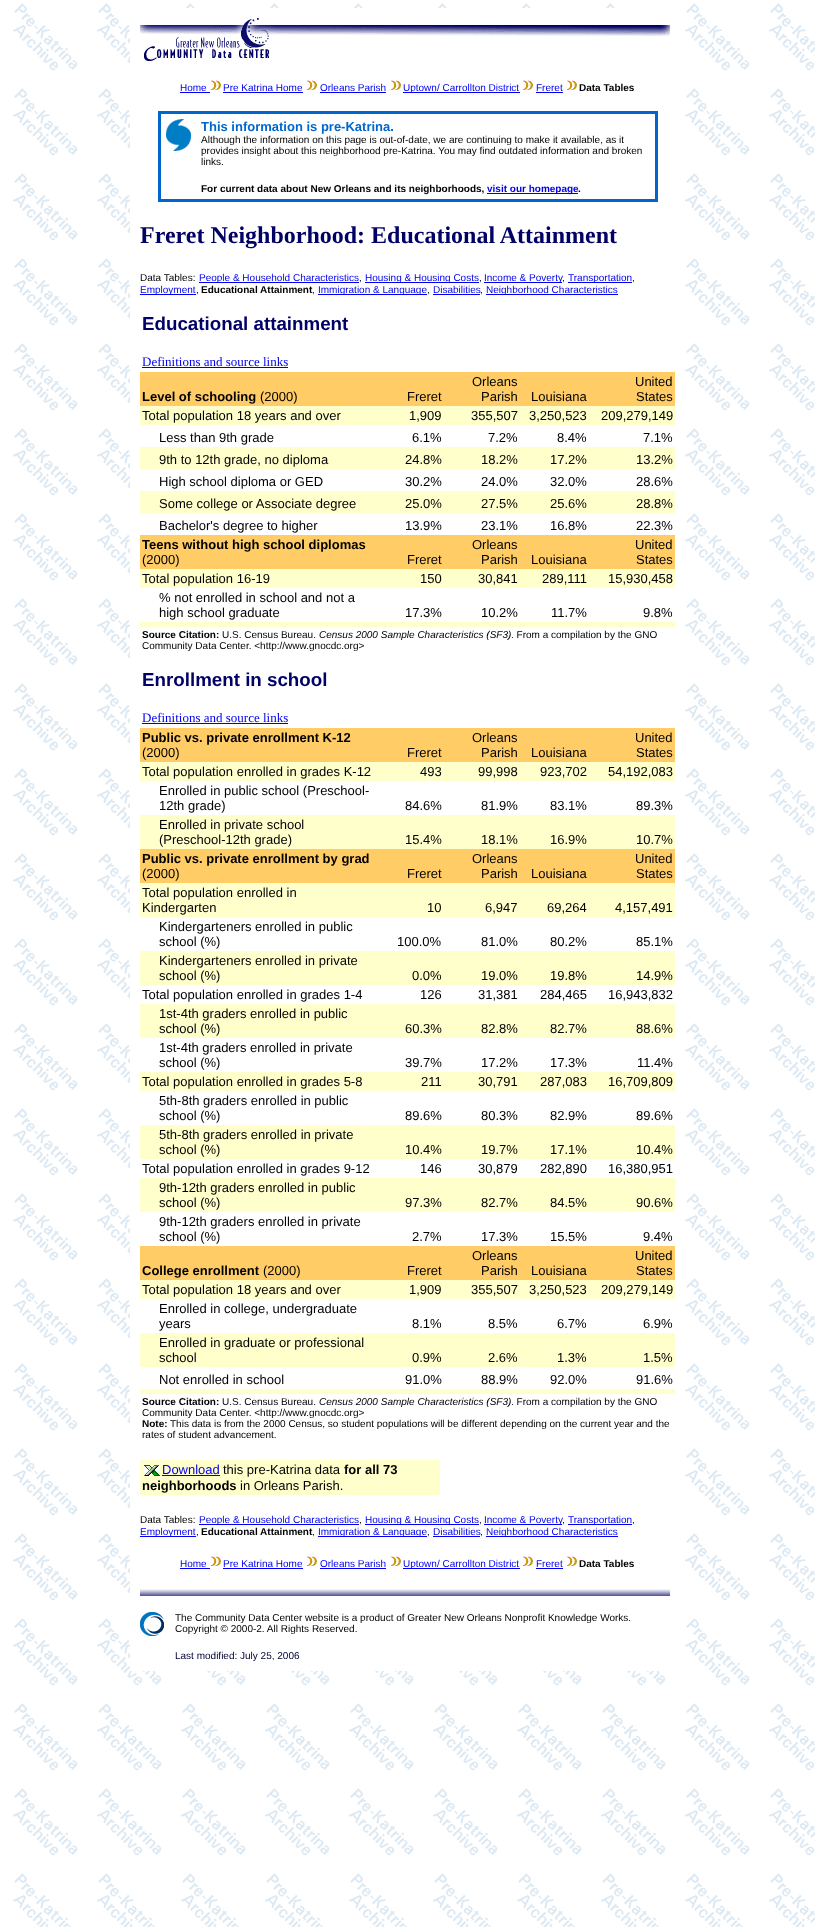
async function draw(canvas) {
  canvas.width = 815
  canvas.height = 1927
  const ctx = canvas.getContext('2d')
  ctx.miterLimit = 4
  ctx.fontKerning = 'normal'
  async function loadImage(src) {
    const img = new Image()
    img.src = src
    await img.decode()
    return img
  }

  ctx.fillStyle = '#fff'
  ctx.fillRect(0, 0, 815, 1927)
  ctx.drawImage(await loadImage('image0.png'), 13, 3, 802, 1924)
  ctx.fillRect(130, 8, 555, 1663)
  ctx.drawImage(await loadImage('image1.png'), 140, 18, 530, 43)
  ctx.font = '10px Liberation Sans'
  ctx.fillStyle = '#00e'
  ctx.fillText('Home', 180, 91)
  ctx.fillRect(180, 92, 30, 1)
  ctx.drawImage(await loadImage('image2.png'), 210, 80, 11, 10)
  ctx.fillText('Pre Katrina Home', 223, 91)
  ctx.fillRect(223, 92, 80, 1)
  ctx.drawImage(await loadImage('image2.png'), 306, 80, 11, 10)
  ctx.fillText('Orleans Parish', 320, 91)
  ctx.fillRect(320, 92, 66, 1)
  ctx.drawImage(await loadImage('image2.png'), 390, 80, 11, 10)
  ctx.fillRect(403, 92, 117, 1)
  ctx.fillText('Uptown/ Carrollton District', 403, 91)
  ctx.drawImage(await loadImage('image2.png'), 522, 80, 11, 10)
  ctx.fillText('Freret', 536, 91)
  ctx.fillRect(536, 92, 27, 1)
  ctx.drawImage(await loadImage('image2.png'), 566, 80, 11, 10)
  ctx.font = 'bold 10px Liberation Sans'
  ctx.fillStyle = '#000'
  ctx.fillText('Data Tables', 579, 91)
  ctx.strokeStyle = '#06c'
  ctx.lineWidth = 3
  ctx.strokeRect(159.5, 112.5, 497, 88)
  ctx.drawImage(await loadImage('image3.png'), 166, 119, 25, 32)
  ctx.font = 'bold 13px Liberation Sans'
  ctx.fillStyle = '#06c'
  ctx.fillText('This information is pre-Katrina.', 201, 131)
  ctx.font = '10px Liberation Sans'
  ctx.fillStyle = '#000'
  ctx.fillText('Although the information on this page is out-of-date, we are continuing to make it available, as it', 201, 143)
  ctx.fillText('provides insight about this neighborhood pre-Katrina. You may find outdated information and broken', 201, 154)
  ctx.fillText('links.', 201, 165)
  ctx.font = 'bold 10px Liberation Sans'
  ctx.fillText('For current data about New Orleans and its neighborhoods,', 201, 192)
  ctx.fillStyle = '#00e'
  ctx.fillRect(487, 193, 91, 1)
  ctx.fillText('visit our homepage', 487, 192)
  ctx.fillStyle = '#000'
  ctx.fillText('.', 578, 192)
  ctx.font = 'bold 24px Liberation Serif'
  ctx.fillStyle = '#006'
  ctx.fillText('Freret Neighborhood: Educational Attainment', 140, 243)
  ctx.font = '10px Liberation Sans'
  ctx.fillStyle = '#000'
  ctx.fillText('Data Tables:', 140, 281)
  ctx.fillStyle = '#00e'
  ctx.fillRect(199, 282, 160, 1)
  ctx.fillText('People & Household Characteristics', 199, 281)
  ctx.fillStyle = '#000'
  ctx.fillText(',', 359, 281)
  ctx.fillStyle = '#00e'
  ctx.fillRect(365, 282, 114, 1)
  ctx.fillText('Housing & Housing Costs', 365, 281)
  ctx.fillStyle = '#000'
  ctx.fillText(',', 479, 281)
  ctx.fillStyle = '#00e'
  ctx.fillRect(484, 282, 78, 1)
  ctx.fillText('Income & Poverty', 484, 281)
  ctx.fillStyle = '#000'
  ctx.fillText(',', 562, 281)
  ctx.fillStyle = '#00e'
  ctx.fillRect(568, 282, 64, 1)
  ctx.fillText('Transportation', 568, 281)
  ctx.fillStyle = '#000'
  ctx.fillText(',', 632, 281)
  ctx.fillStyle = '#00e'
  ctx.fillRect(140, 294, 56, 1)
  ctx.fillText('Employment', 140, 293)
  ctx.fillStyle = '#000'
  ctx.fillText(',', 196, 293)
  ctx.font = 'bold 10px Liberation Sans'
  ctx.fillText('Educational Attainment', 201, 293)
  ctx.font = '10px Liberation Sans'
  ctx.fillText(',', 312, 293)
  ctx.fillStyle = '#00e'
  ctx.fillRect(318, 294, 109, 1)
  ctx.fillText('Immigration & Language', 318, 293)
  ctx.fillStyle = '#000'
  ctx.fillText(',', 427, 293)
  ctx.fillStyle = '#00e'
  ctx.fillText('Disabilities', 433, 293)
  ctx.fillStyle = '#000'
  ctx.fillText(',', 480, 293)
  ctx.fillStyle = '#00e'
  ctx.fillRect(433, 294, 47, 1)
  ctx.fillRect(486, 294, 132, 1)
  ctx.fillText('Neighborhood Characteristics', 486, 293)
  ctx.font = 'bold 18.75px Liberation Sans'
  ctx.fillStyle = '#006'
  ctx.fillText('Educational attainment', 142, 330)
  ctx.font = '13px Liberation Serif'
  ctx.fillStyle = '#00e'
  ctx.fillText('Definitions and source links', 142, 366)
  ctx.fillRect(142, 367, 146, 1)
  ctx.fillStyle = '#fc6'
  ctx.fillRect(140, 372, 535, 34)
  ctx.font = 'bold 13px Liberation Sans'
  ctx.fillStyle = '#000'
  ctx.fillText('Level of schooling', 142, 401)
  ctx.font = '13px Liberation Sans'
  ctx.fillText('(2000)', 260, 401)
  ctx.fillText('Freret', 407, 401)
  ctx.fillText('Orleans', 472, 386)
  ctx.fillText('Parish', 481, 401)
  ctx.fillText('Louisiana', 531, 401)
  ctx.fillText('United', 635, 386)
  ctx.fillText('States', 636, 401)
  ctx.fillStyle = '#ffc'
  ctx.fillRect(140, 406, 535, 19)
  ctx.fillStyle = '#000'
  ctx.fillText('Total population 18 years and over', 142, 420)
  ctx.fillText('1,909', 409, 420)
  ctx.fillText('355,507', 471, 420)
  ctx.fillText('3,250,523', 529, 420)
  ctx.fillText('209,279,149', 601, 420)
  ctx.fillText('Less than 9th grade', 159, 442)
  ctx.fillText('6.1%', 412, 442)
  ctx.fillText('7.2%', 488, 442)
  ctx.fillText('8.4%', 557, 442)
  ctx.fillText('7.1%', 643, 442)
  ctx.fillStyle = '#ffc'
  ctx.fillRect(140, 447, 535, 22)
  ctx.fillStyle = '#000'
  ctx.fillText('9th to 12th grade, no diploma', 159, 464)
  ctx.fillText('24.8%', 405, 464)
  ctx.fillText('18.2%', 481, 464)
  ctx.fillText('17.2%', 550, 464)
  ctx.fillText('13.2%', 636, 464)
  ctx.fillText('High school diploma or GED', 159, 486)
  ctx.fillText('30.2%', 405, 486)
  ctx.fillText('24.0%', 481, 486)
  ctx.fillText('32.0%', 550, 486)
  ctx.fillText('28.6%', 636, 486)
  ctx.fillStyle = '#ffc'
  ctx.fillRect(140, 491, 535, 22)
  ctx.fillStyle = '#000'
  ctx.fillText('Some college or Associate degree', 159, 508)
  ctx.fillText('25.0%', 405, 508)
  ctx.fillText('27.5%', 481, 508)
  ctx.fillText('25.6%', 550, 508)
  ctx.fillText('28.8%', 636, 508)
  ctx.fillText('Bachelor\'s degree to higher', 159, 530)
  ctx.fillText('13.9%', 405, 530)
  ctx.fillText('23.1%', 481, 530)
  ctx.fillText('16.8%', 550, 530)
  ctx.fillText('22.3%', 636, 530)
  ctx.fillStyle = '#fc6'
  ctx.fillRect(140, 535, 535, 34)
  ctx.font = 'bold 13px Liberation Sans'
  ctx.fillStyle = '#000'
  ctx.fillText('Teens without high school diplomas', 142, 549)
  ctx.font = '13px Liberation Sans'
  ctx.fillText('(2000)', 142, 564)
  ctx.fillText('Freret', 407, 564)
  ctx.fillText('Orleans', 472, 549)
  ctx.fillText('Parish', 481, 564)
  ctx.fillText('Louisiana', 531, 564)
  ctx.fillText('United', 635, 549)
  ctx.fillText('States', 636, 564)
  ctx.fillStyle = '#ffc'
  ctx.fillRect(140, 569, 535, 19)
  ctx.fillStyle = '#000'
  ctx.fillText('Total population 16-19', 142, 583)
  ctx.fillText('150', 420, 583)
  ctx.fillText('30,841', 478, 583)
  ctx.fillText('289,111', 542, 583)
  ctx.fillText('15,930,458', 608, 583)
  ctx.fillText('% not enrolled in school and not a', 159, 602)
  ctx.fillText('high school graduate', 159, 617)
  ctx.fillText('17.3%', 405, 617)
  ctx.fillText('10.2%', 481, 617)
  ctx.fillText('11.7%', 551, 617)
  ctx.fillText('9.8%', 643, 617)
  ctx.fillStyle = '#ffc'
  ctx.fillRect(140, 622, 535, 5)
  ctx.font = 'bold 10px Liberation Sans'
  ctx.fillStyle = '#000'
  ctx.fillText('Source Citation:', 142, 638)
  ctx.font = '10px Liberation Sans'
  ctx.fillText('U.S. Census Bureau.', 222, 638)
  ctx.font = 'italic 10px Liberation Sans'
  ctx.fillText('Census 2000 Sample Characteristics (SF3)', 319, 638)
  ctx.font = '10px Liberation Sans'
  ctx.fillText('. From a compilation by the GNO', 511, 638)
  ctx.fillText('Community Data Center. <http://www.gnocdc.org>', 142, 649)
  ctx.font = 'bold 18.75px Liberation Sans'
  ctx.fillStyle = '#006'
  ctx.fillText('Enrollment in school', 142, 686)
  ctx.font = '13px Liberation Serif'
  ctx.fillStyle = '#00e'
  ctx.fillText('Definitions and source links', 142, 722)
  ctx.fillRect(142, 723, 146, 1)
  ctx.fillStyle = '#fc6'
  ctx.fillRect(140, 728, 535, 34)
  ctx.font = 'bold 13px Liberation Sans'
  ctx.fillStyle = '#000'
  ctx.fillText('Public vs. private enrollment K-12', 142, 742)
  ctx.font = '13px Liberation Sans'
  ctx.fillText('(2000)', 142, 757)
  ctx.fillText('Freret', 407, 757)
  ctx.fillText('Orleans', 472, 742)
  ctx.fillText('Parish', 481, 757)
  ctx.fillText('Louisiana', 531, 757)
  ctx.fillText('United', 635, 742)
  ctx.fillText('States', 636, 757)
  ctx.fillStyle = '#ffc'
  ctx.fillRect(140, 762, 535, 19)
  ctx.fillStyle = '#000'
  ctx.fillText('Total population enrolled in grades K-12', 142, 776)
  ctx.fillText('493', 420, 776)
  ctx.fillText('99,998', 478, 776)
  ctx.fillText('923,702', 540, 776)
  ctx.fillText('54,192,083', 608, 776)
  ctx.fillText('Enrolled in public school (Preschool-', 159, 795)
  ctx.fillText('12th grade)', 159, 810)
  ctx.fillText('84.6%', 405, 810)
  ctx.fillText('81.9%', 481, 810)
  ctx.fillText('83.1%', 550, 810)
  ctx.fillText('89.3%', 636, 810)
  ctx.fillStyle = '#ffc'
  ctx.fillRect(140, 815, 535, 34)
  ctx.fillStyle = '#000'
  ctx.fillText('Enrolled in private school', 159, 829)
  ctx.fillText('(Preschool-12th grade)', 159, 844)
  ctx.fillText('15.4%', 405, 844)
  ctx.fillText('18.1%', 481, 844)
  ctx.fillText('16.9%', 550, 844)
  ctx.fillText('10.7%', 636, 844)
  ctx.fillStyle = '#fc6'
  ctx.fillRect(140, 849, 535, 34)
  ctx.font = 'bold 13px Liberation Sans'
  ctx.fillStyle = '#000'
  ctx.fillText('Public vs. private enrollment by grad', 142, 863)
  ctx.font = '13px Liberation Sans'
  ctx.fillText('(2000)', 142, 878)
  ctx.fillText('Freret', 407, 878)
  ctx.fillText('Orleans', 472, 863)
  ctx.fillText('Parish', 481, 878)
  ctx.fillText('Louisiana', 531, 878)
  ctx.fillText('United', 635, 863)
  ctx.fillText('States', 636, 878)
  ctx.fillStyle = '#ffc'
  ctx.fillRect(140, 883, 535, 34)
  ctx.fillStyle = '#000'
  ctx.fillText('Total population enrolled in', 142, 897)
  ctx.fillText('Kindergarten', 142, 912)
  ctx.fillText('10', 427, 912)
  ctx.fillText('6,947', 485, 912)
  ctx.fillText('69,264', 547, 912)
  ctx.fillText('4,157,491', 615, 912)
  ctx.fillText('Kindergarteners enrolled in public', 159, 931)
  ctx.fillText('school (%)', 159, 946)
  ctx.fillText('100.0%', 397, 946)
  ctx.fillText('81.0%', 481, 946)
  ctx.fillText('80.2%', 550, 946)
  ctx.fillText('85.1%', 636, 946)
  ctx.fillStyle = '#ffc'
  ctx.fillRect(140, 951, 535, 34)
  ctx.fillStyle = '#000'
  ctx.fillText('Kindergarteners enrolled in private', 159, 965)
  ctx.fillText('school (%)', 159, 980)
  ctx.fillText('0.0%', 412, 980)
  ctx.fillText('19.0%', 481, 980)
  ctx.fillText('19.8%', 550, 980)
  ctx.fillText('14.9%', 636, 980)
  ctx.fillText('Total population enrolled in grades 1-4', 142, 999)
  ctx.fillText('126', 420, 999)
  ctx.fillText('31,381', 478, 999)
  ctx.fillText('284,465', 540, 999)
  ctx.fillText('16,943,832', 608, 999)
  ctx.fillStyle = '#ffc'
  ctx.fillRect(140, 1004, 535, 34)
  ctx.fillStyle = '#000'
  ctx.fillText('1st-4th graders enrolled in public', 159, 1018)
  ctx.fillText('school (%)', 159, 1033)
  ctx.fillText('60.3%', 405, 1033)
  ctx.fillText('82.8%', 481, 1033)
  ctx.fillText('82.7%', 550, 1033)
  ctx.fillText('88.6%', 636, 1033)
  ctx.fillText('1st-4th graders enrolled in private', 159, 1052)
  ctx.fillText('school (%)', 159, 1067)
  ctx.fillText('39.7%', 405, 1067)
  ctx.fillText('17.2%', 481, 1067)
  ctx.fillText('17.3%', 550, 1067)
  ctx.fillText('11.4%', 637, 1067)
  ctx.fillStyle = '#ffc'
  ctx.fillRect(140, 1072, 535, 19)
  ctx.fillStyle = '#000'
  ctx.fillText('Total population enrolled in grades 5-8', 142, 1086)
  ctx.fillText('211', 421, 1086)
  ctx.fillText('30,791', 478, 1086)
  ctx.fillText('287,083', 540, 1086)
  ctx.fillText('16,709,809', 608, 1086)
  ctx.fillText('5th-8th graders enrolled in public', 159, 1105)
  ctx.fillText('school (%)', 159, 1120)
  ctx.fillText('89.6%', 405, 1120)
  ctx.fillText('80.3%', 481, 1120)
  ctx.fillText('82.9%', 550, 1120)
  ctx.fillText('89.6%', 636, 1120)
  ctx.fillStyle = '#ffc'
  ctx.fillRect(140, 1125, 535, 34)
  ctx.fillStyle = '#000'
  ctx.fillText('5th-8th graders enrolled in private', 159, 1139)
  ctx.fillText('school (%)', 159, 1154)
  ctx.fillText('10.4%', 405, 1154)
  ctx.fillText('19.7%', 481, 1154)
  ctx.fillText('17.1%', 550, 1154)
  ctx.fillText('10.4%', 636, 1154)
  ctx.fillText('Total population enrolled in grades 9-12', 142, 1173)
  ctx.fillText('146', 420, 1173)
  ctx.fillText('30,879', 478, 1173)
  ctx.fillText('282,890', 540, 1173)
  ctx.fillText('16,380,951', 608, 1173)
  ctx.fillStyle = '#ffc'
  ctx.fillRect(140, 1178, 535, 34)
  ctx.fillStyle = '#000'
  ctx.fillText('9th-12th graders enrolled in public', 159, 1192)
  ctx.fillText('school (%)', 159, 1207)
  ctx.fillText('97.3%', 405, 1207)
  ctx.fillText('82.7%', 481, 1207)
  ctx.fillText('84.5%', 550, 1207)
  ctx.fillText('90.6%', 636, 1207)
  ctx.fillText('9th-12th graders enrolled in private', 159, 1226)
  ctx.fillText('school (%)', 159, 1241)
  ctx.fillText('2.7%', 412, 1241)
  ctx.fillText('17.3%', 481, 1241)
  ctx.fillText('15.5%', 550, 1241)
  ctx.fillText('9.4%', 643, 1241)
  ctx.fillStyle = '#fc6'
  ctx.fillRect(140, 1246, 535, 34)
  ctx.font = 'bold 13px Liberation Sans'
  ctx.fillStyle = '#000'
  ctx.fillText('College enrollment', 142, 1275)
  ctx.font = '13px Liberation Sans'
  ctx.fillText('(2000)', 263, 1275)
  ctx.fillText('Freret', 407, 1275)
  ctx.fillText('Orleans', 472, 1260)
  ctx.fillText('Parish', 481, 1275)
  ctx.fillText('Louisiana', 531, 1275)
  ctx.fillText('United', 635, 1260)
  ctx.fillText('States', 636, 1275)
  ctx.fillStyle = '#ffc'
  ctx.fillRect(140, 1280, 535, 19)
  ctx.fillStyle = '#000'
  ctx.fillText('Total population 18 years and over', 142, 1294)
  ctx.fillText('1,909', 409, 1294)
  ctx.fillText('355,507', 471, 1294)
  ctx.fillText('3,250,523', 529, 1294)
  ctx.fillText('209,279,149', 601, 1294)
  ctx.fillText('Enrolled in college, undergraduate', 159, 1313)
  ctx.fillText('years', 159, 1328)
  ctx.fillText('8.1%', 412, 1328)
  ctx.fillText('8.5%', 488, 1328)
  ctx.fillText('6.7%', 557, 1328)
  ctx.fillText('6.9%', 643, 1328)
  ctx.fillStyle = '#ffc'
  ctx.fillRect(140, 1333, 535, 34)
  ctx.fillStyle = '#000'
  ctx.fillText('Enrolled in graduate or professional', 159, 1347)
  ctx.fillText('school', 159, 1362)
  ctx.fillText('0.9%', 412, 1362)
  ctx.fillText('2.6%', 488, 1362)
  ctx.fillText('1.3%', 557, 1362)
  ctx.fillText('1.5%', 643, 1362)
  ctx.fillText('Not enrolled in school', 159, 1384)
  ctx.fillText('91.0%', 405, 1384)
  ctx.fillText('88.9%', 481, 1384)
  ctx.fillText('92.0%', 550, 1384)
  ctx.fillText('91.6%', 636, 1384)
  ctx.fillStyle = '#ffc'
  ctx.fillRect(140, 1389, 535, 5)
  ctx.font = 'bold 10px Liberation Sans'
  ctx.fillStyle = '#000'
  ctx.fillText('Source Citation:', 142, 1405)
  ctx.font = '10px Liberation Sans'
  ctx.fillText('U.S. Census Bureau.', 222, 1405)
  ctx.font = 'italic 10px Liberation Sans'
  ctx.fillText('Census 2000 Sample Characteristics (SF3)', 319, 1405)
  ctx.font = '10px Liberation Sans'
  ctx.fillText('. From a compilation by the GNO', 511, 1405)
  ctx.fillText('Community Data Center. <http://www.gnocdc.org>', 142, 1416)
  ctx.font = 'bold 10px Liberation Sans'
  ctx.fillText('Note:', 142, 1427)
  ctx.font = '10px Liberation Sans'
  ctx.fillText('This data is from the 2000 Census, so student populations will be different depending on the current year and the', 170, 1427)
  ctx.fillText('rates of student advancement.', 142, 1438)
  ctx.fillStyle = '#ffc'
  ctx.fillRect(140, 1460, 300, 35)
  ctx.drawImage(await loadImage('image4.png'), 144, 1465, 16, 11)
  ctx.font = '13px Liberation Sans'
  ctx.fillStyle = '#00e'
  ctx.fillText('Download', 162, 1474)
  ctx.fillRect(162, 1475, 58, 1)
  ctx.fillStyle = '#000'
  ctx.fillText('this pre-Katrina data', 223, 1474)
  ctx.font = 'bold 13px Liberation Sans'
  ctx.fillText('for all 73', 344, 1474)
  ctx.fillText('neighborhoods', 142, 1490)
  ctx.font = '13px Liberation Sans'
  ctx.fillText('in Orleans Parish.', 240, 1490)
  ctx.font = '10px Liberation Sans'
  ctx.fillText('Data Tables:', 140, 1523)
  ctx.fillStyle = '#00e'
  ctx.fillRect(199, 1524, 160, 1)
  ctx.fillText('People & Household Characteristics', 199, 1523)
  ctx.fillStyle = '#000'
  ctx.fillText(',', 359, 1523)
  ctx.fillStyle = '#00e'
  ctx.fillRect(365, 1524, 114, 1)
  ctx.fillText('Housing & Housing Costs', 365, 1523)
  ctx.fillStyle = '#000'
  ctx.fillText(',', 479, 1523)
  ctx.fillStyle = '#00e'
  ctx.fillRect(484, 1524, 78, 1)
  ctx.fillText('Income & Poverty', 484, 1523)
  ctx.fillStyle = '#000'
  ctx.fillText(',', 562, 1523)
  ctx.fillStyle = '#00e'
  ctx.fillRect(568, 1524, 64, 1)
  ctx.fillText('Transportation', 568, 1523)
  ctx.fillStyle = '#000'
  ctx.fillText(',', 632, 1523)
  ctx.fillStyle = '#00e'
  ctx.fillRect(140, 1536, 56, 1)
  ctx.fillText('Employment', 140, 1535)
  ctx.fillStyle = '#000'
  ctx.fillText(',', 196, 1535)
  ctx.font = 'bold 10px Liberation Sans'
  ctx.fillText('Educational Attainment', 201, 1535)
  ctx.font = '10px Liberation Sans'
  ctx.fillText(',', 312, 1535)
  ctx.fillStyle = '#00e'
  ctx.fillRect(318, 1536, 109, 1)
  ctx.fillText('Immigration & Language', 318, 1535)
  ctx.fillStyle = '#000'
  ctx.fillText(',', 427, 1535)
  ctx.fillStyle = '#00e'
  ctx.fillText('Disabilities', 433, 1535)
  ctx.fillStyle = '#000'
  ctx.fillText(',', 480, 1535)
  ctx.fillStyle = '#00e'
  ctx.fillRect(433, 1536, 47, 1)
  ctx.fillRect(486, 1536, 132, 1)
  ctx.fillText('Neighborhood Characteristics', 486, 1535)
  ctx.fillText('Home', 180, 1567)
  ctx.fillRect(180, 1568, 30, 1)
  ctx.drawImage(await loadImage('image2.png'), 210, 1556, 11, 10)
  ctx.fillText('Pre Katrina Home', 223, 1567)
  ctx.fillRect(223, 1568, 80, 1)
  ctx.drawImage(await loadImage('image2.png'), 306, 1556, 11, 10)
  ctx.fillText('Orleans Parish', 320, 1567)
  ctx.fillRect(320, 1568, 66, 1)
  ctx.drawImage(await loadImage('image2.png'), 390, 1556, 11, 10)
  ctx.fillRect(403, 1568, 117, 1)
  ctx.fillText('Uptown/ Carrollton District', 403, 1567)
  ctx.drawImage(await loadImage('image2.png'), 522, 1556, 11, 10)
  ctx.fillText('Freret', 536, 1567)
  ctx.fillRect(536, 1568, 27, 1)
  ctx.drawImage(await loadImage('image2.png'), 566, 1556, 11, 10)
  ctx.font = 'bold 10px Liberation Sans'
  ctx.fillStyle = '#000'
  ctx.fillText('Data Tables', 579, 1567)
  ctx.drawImage(await loadImage('image5.png'), 140, 1589, 530, 7)
  ctx.drawImage(await loadImage('image6.png'), 140, 1612, 24, 24)
  ctx.font = '10px Liberation Sans'
  ctx.fillText('The Community Data Center website is a product of Greater New Orleans Nonprofit Knowledge Works.', 175, 1621)
  ctx.fillText('Copyright © 2000-2. All Rights Reserved.', 175, 1632)
  ctx.fillStyle = '#003'
  ctx.fillText('Last modified: July 25, 2006', 175, 1659)
}

draw(document.querySelector('canvas'))
